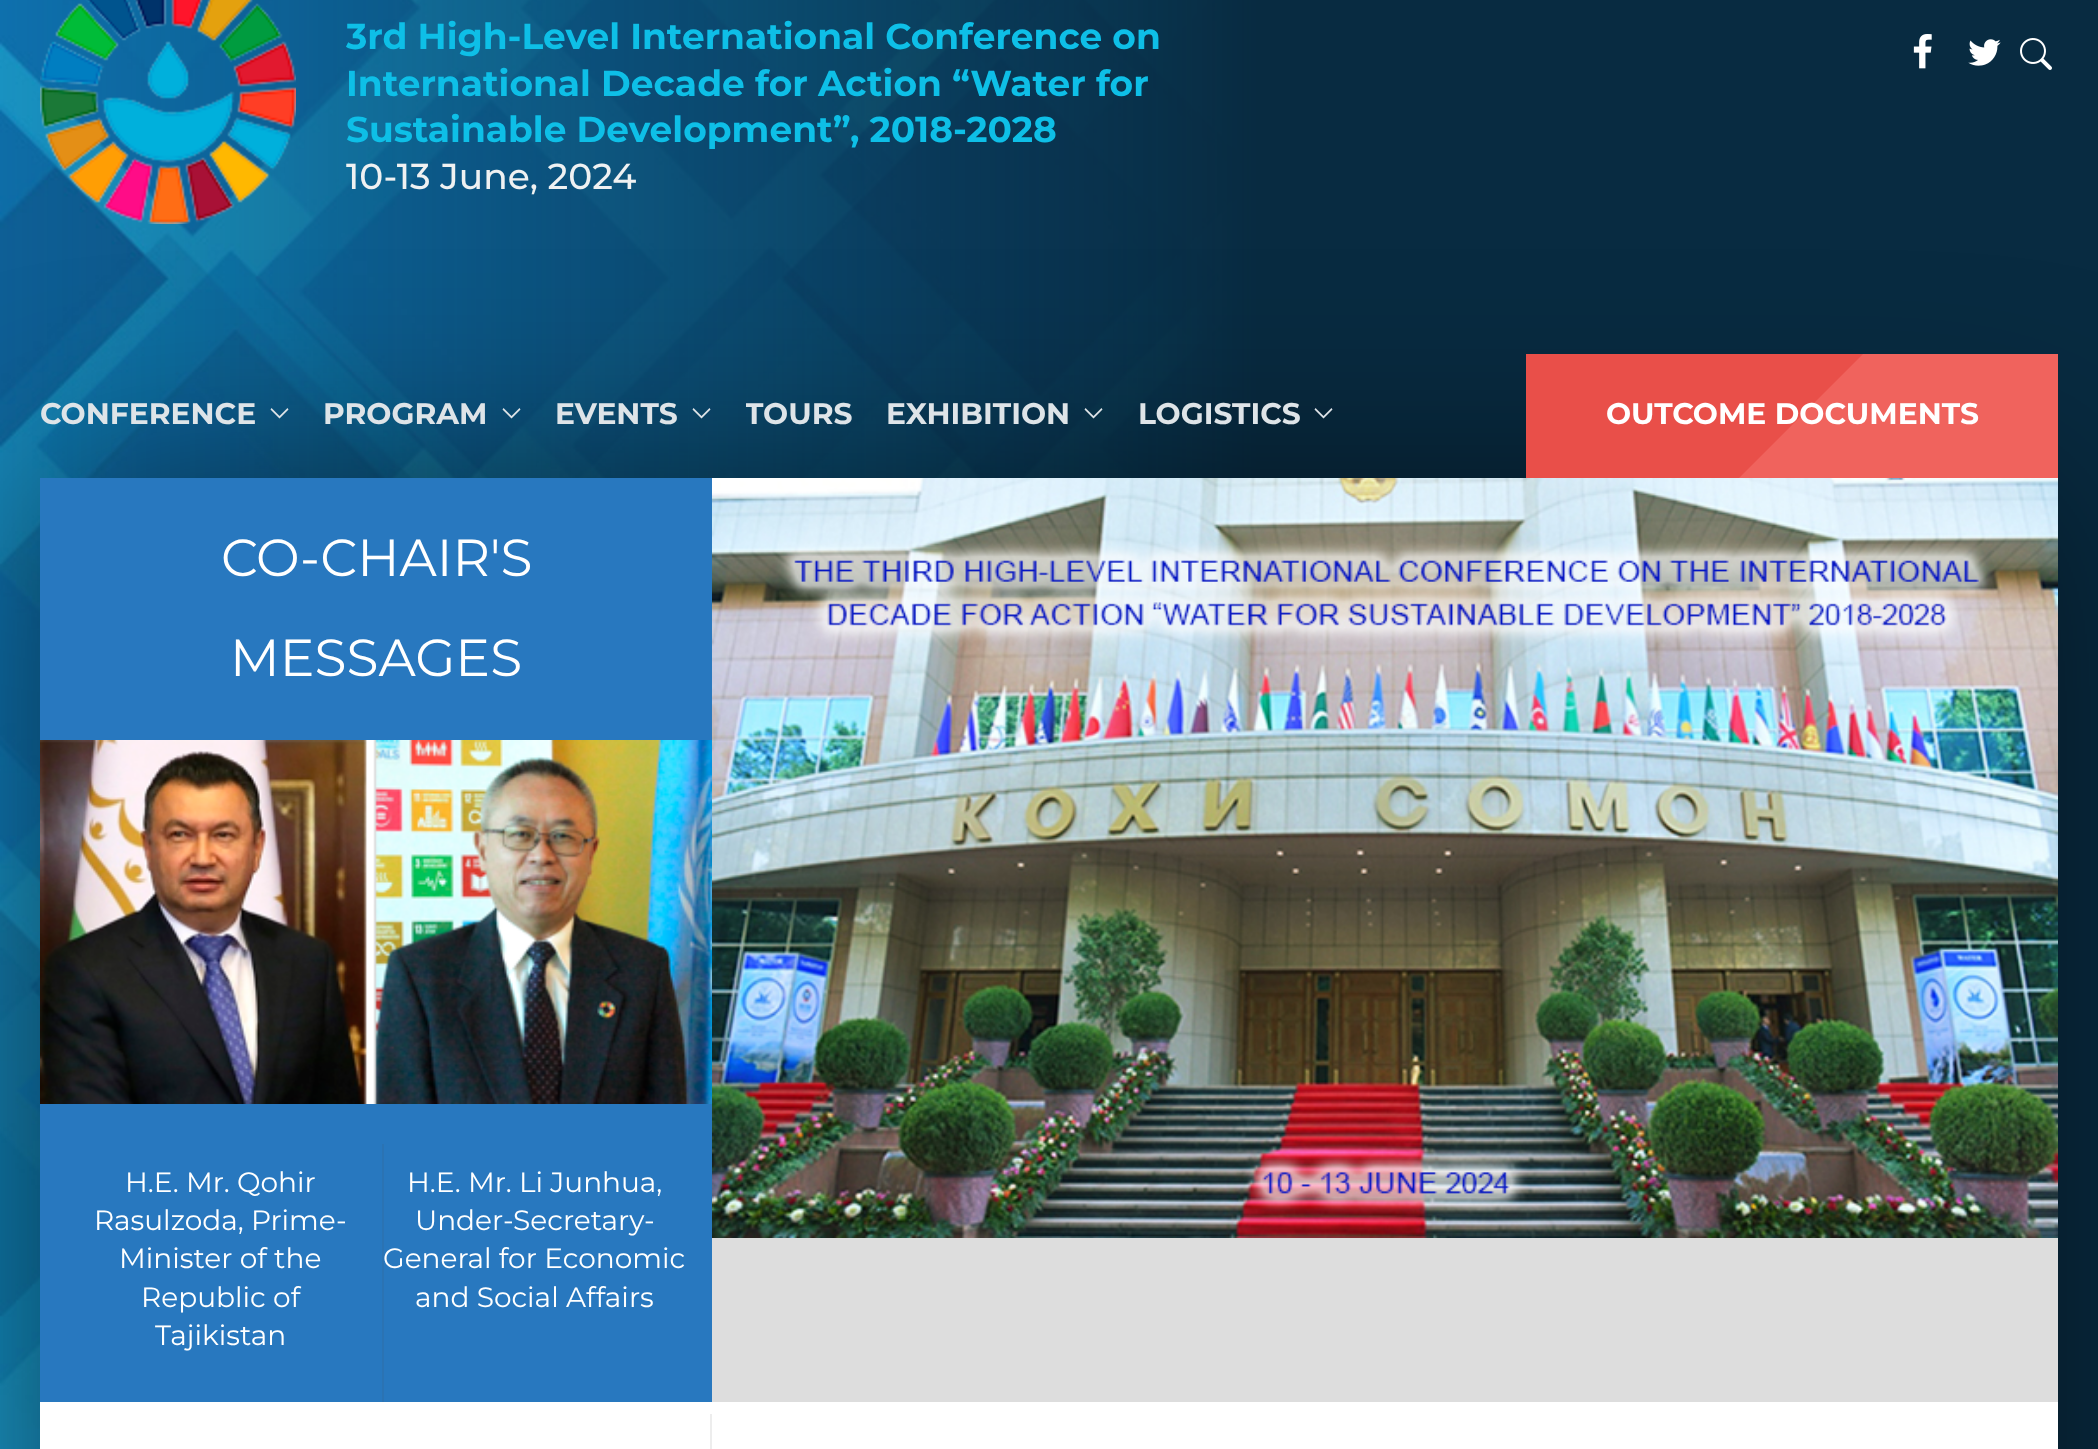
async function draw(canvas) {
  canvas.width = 2098
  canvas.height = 1449
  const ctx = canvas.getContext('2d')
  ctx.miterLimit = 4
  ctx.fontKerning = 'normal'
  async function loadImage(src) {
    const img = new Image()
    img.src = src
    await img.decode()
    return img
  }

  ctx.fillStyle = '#fff'
  ctx.fillRect(0, 0, 2098, 1449)
  ctx.drawImage(await loadImage('image0.png'), 0, 0, 2098, 1449)
  ctx.fillStyle = '#00000080'
  ctx.filter = 'blur(100px)'
  ctx.beginPath()
  ctx.rect(40, 478, 2018, 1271)
  ctx.fill()
  ctx.filter = 'none'
  ctx.drawImage(await loadImage('image1.png'), 40, 0, 256, 224)
  ctx.font = 'bold 36px Montserrat'
  ctx.fillStyle = '#0ebfe7'
  ctx.fillText('3rd High-Level International Conference on', 346, 49)
  ctx.fillText('International Decade for Action “Water for', 346, 96)
  ctx.fillText('Sustainable Development”, 2018-2028', 346, 142)
  ctx.font = '500 36px Montserrat'
  ctx.fillStyle = '#eff1f2'
  ctx.fillText('10-13 June, 2024', 346, 189)
  ctx.drawImage(await loadImage('image2.png'), 1913, 34, 19, 35)
  ctx.drawImage(await loadImage('image3.png'), 1968, 39, 33, 27)
  ctx.drawImage(await loadImage('image4.png'), 2020, 38, 32, 32)
  ctx.font = 'bold 29.75px Montserrat'
  ctx.fillStyle = '#dee4e8'
  ctx.fillText('CONFERENCE', 40, 424)
  ctx.beginPath()
  ctx.moveTo(271.5, 408)
  ctx.lineTo(279.5, 416)
  ctx.lineTo(287.5, 408)
  ctx.lineTo(288.5, 409.5)
  ctx.lineTo(279.5, 418.5)
  ctx.lineTo(270.5, 409.5)
  ctx.closePath()
  ctx.fill()
  ctx.fillText('PROGRAM', 323, 424)
  ctx.beginPath()
  ctx.moveTo(503.5, 408)
  ctx.lineTo(511.5, 416)
  ctx.lineTo(519.5, 408)
  ctx.lineTo(520.5, 409.5)
  ctx.lineTo(511.5, 418.5)
  ctx.lineTo(502.5, 409.5)
  ctx.closePath()
  ctx.fill()
  ctx.fillText('EVENTS', 555, 424)
  ctx.beginPath()
  ctx.moveTo(693.5, 408)
  ctx.lineTo(701.5, 416)
  ctx.lineTo(709.5, 408)
  ctx.lineTo(710.5, 409.5)
  ctx.lineTo(701.5, 418.5)
  ctx.lineTo(692.5, 409.5)
  ctx.closePath()
  ctx.fill()
  ctx.save()
  ctx.beginPath()
  ctx.rect(746, 354, 106, 124)
  ctx.clip()
  ctx.fillText('TOURS', 745, 424)
  ctx.restore()
  ctx.fillText('EXHIBITION', 886, 424)
  ctx.beginPath()
  ctx.moveTo(1085.5, 408)
  ctx.lineTo(1093.5, 416)
  ctx.lineTo(1101.5, 408)
  ctx.lineTo(1102.5, 409.5)
  ctx.lineTo(1093.5, 418.5)
  ctx.lineTo(1084.5, 409.5)
  ctx.closePath()
  ctx.fill()
  ctx.fillText('LOGISTICS', 1138, 424)
  ctx.beginPath()
  ctx.moveTo(1315.5, 408)
  ctx.lineTo(1323.5, 416)
  ctx.lineTo(1331.5, 408)
  ctx.lineTo(1332.5, 409.5)
  ctx.lineTo(1323.5, 418.5)
  ctx.lineTo(1314.5, 409.5)
  ctx.closePath()
  ctx.fill()
  ctx.fillStyle = '#e94f49'
  ctx.fillRect(1526, 354, 337, 124)
  ctx.save()
  ctx.beginPath()
  ctx.rect(1738, 354, 320, 124)
  ctx.clip()
  ctx.fillStyle = '#f0635d'
  ctx.beginPath()
  ctx.moveTo(1739, 478)
  ctx.lineTo(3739, -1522)
  ctx.lineTo(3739, 478)
  ctx.closePath()
  ctx.fill()
  ctx.restore()
  ctx.fillStyle = '#fff'
  ctx.fillText('OUTCOME DOCUMENTS', 1606, 424)
  ctx.fillRect(40, 1402, 2018, 47)
  ctx.fillStyle = '#2878bf'
  ctx.fillRect(40, 478, 672, 924)
  ctx.font = '52px Montserrat'
  ctx.fillStyle = '#fff'
  ctx.fillText('CO-CHAIR\'S', 221, 576)
  ctx.fillText('MESSAGES', 230, 676)
  ctx.drawImage(await loadImage('image5.png'), 40, 740, 672, 364)
  ctx.font = '28px Montserrat'
  ctx.fillText('H.E. Mr. Qohir', 125, 1192)
  ctx.fillText('Rasulzoda, Prime-', 94, 1230)
  ctx.fillText('Minister of the', 119, 1268)
  ctx.fillText('Republic of', 141, 1307)
  ctx.fillText('Tajikistan', 155, 1345)
  ctx.fillStyle = '#2b73b3'
  ctx.fillRect(382, 1144, 2, 258)
  ctx.fillStyle = '#fff'
  ctx.fillText('H.E. Mr. Li Junhua,', 407, 1192)
  ctx.fillText('Under-Secretary-', 415, 1230)
  ctx.fillText('General for Economic', 383, 1268)
  ctx.fillText('and Social Affairs', 415, 1307)
  ctx.fillStyle = '#ddd'
  ctx.fillRect(712, 1238, 1346, 164)
  ctx.drawImage(await loadImage('image6.png'), 712, 478, 1346, 760)
  ctx.fillStyle = '#ededed'
  ctx.fillRect(710, 1414, 2, 35)
}

draw(document.querySelector('canvas'))
